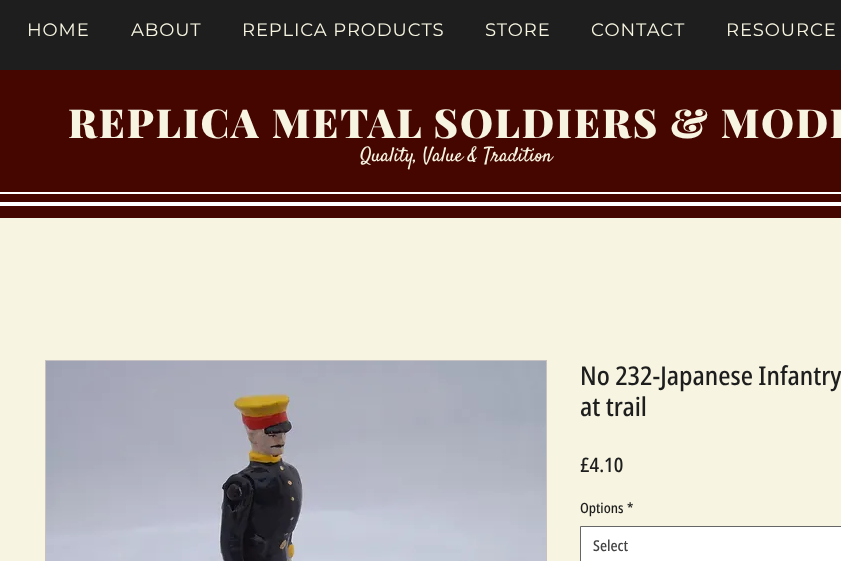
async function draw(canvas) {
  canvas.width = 841
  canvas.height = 561
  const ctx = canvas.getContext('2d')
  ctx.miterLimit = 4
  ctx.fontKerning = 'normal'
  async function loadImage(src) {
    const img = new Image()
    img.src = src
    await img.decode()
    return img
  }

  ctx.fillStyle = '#f7f5e1'
  ctx.fillRect(0, 0, 841, 561)
  ctx.fillStyle = '#1e1e1e'
  ctx.fillRect(0, 0, 841, 70)
  ctx.letterSpacing = '0.9px'
  ctx.font = '18px Montserrat'
  ctx.fillStyle = '#f7f5e1'
  ctx.fillText('HOME', 27, 36)
  ctx.fillText('ABOUT', 131, 36)
  ctx.fillText('REPLICA PRODUCTS', 242, 36)
  ctx.fillText('STORE', 485, 36)
  ctx.fillText('CONTACT', 591, 36)
  ctx.fillText('RESOURCE', 726, 36)
  ctx.fillStyle = '#450600'
  ctx.fillRect(0, 70, 841, 148)
  ctx.letterSpacing = '2px'
  ctx.font = '900 40px Playfair Display'
  ctx.fillStyle = '#f7f5e1'
  ctx.fillText('REPLICA METAL SOLDIERS & MODE', 68, 138)
  ctx.letterSpacing = '0px'
  ctx.font = '20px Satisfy'
  ctx.fillText('Quality, Value & Tradition', 360, 161)
  ctx.fillStyle = '#fff'
  ctx.fillRect(0, 202, 841, 4)
  ctx.fillRect(0, 192, 841, 2)
  ctx.strokeStyle = '#c7c2c1'
  ctx.strokeRect(45.5, 360.5, 501, 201)
  ctx.drawImage(await loadImage('image0.png'), 46, 361, 500, 200)
  ctx.font = '500 26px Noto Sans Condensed'
  ctx.fillStyle = '#1e1e1e'
  ctx.fillText('No 232-Japanese Infantry', 580, 385)
  ctx.fillText('at trail', 580, 416)
  ctx.font = '500 20px Noto Sans Condensed'
  ctx.fillText('£4.10', 580, 472)
  ctx.font = '500 14px Noto Sans Condensed'
  ctx.fillText('Options', 580, 513)
  ctx.fillText('*', 627, 513)
  ctx.fillStyle = '#fff'
  ctx.beginPath()
  ctx.rect(580.5, 526.5, 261, 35)
  ctx.fill()
  ctx.strokeStyle = '#666'
  ctx.stroke()
  ctx.font = '500 15px Noto Sans Condensed'
  ctx.fillStyle = '#444'
  ctx.fillText('Select', 593, 551)
}

draw(document.querySelector('canvas'))
